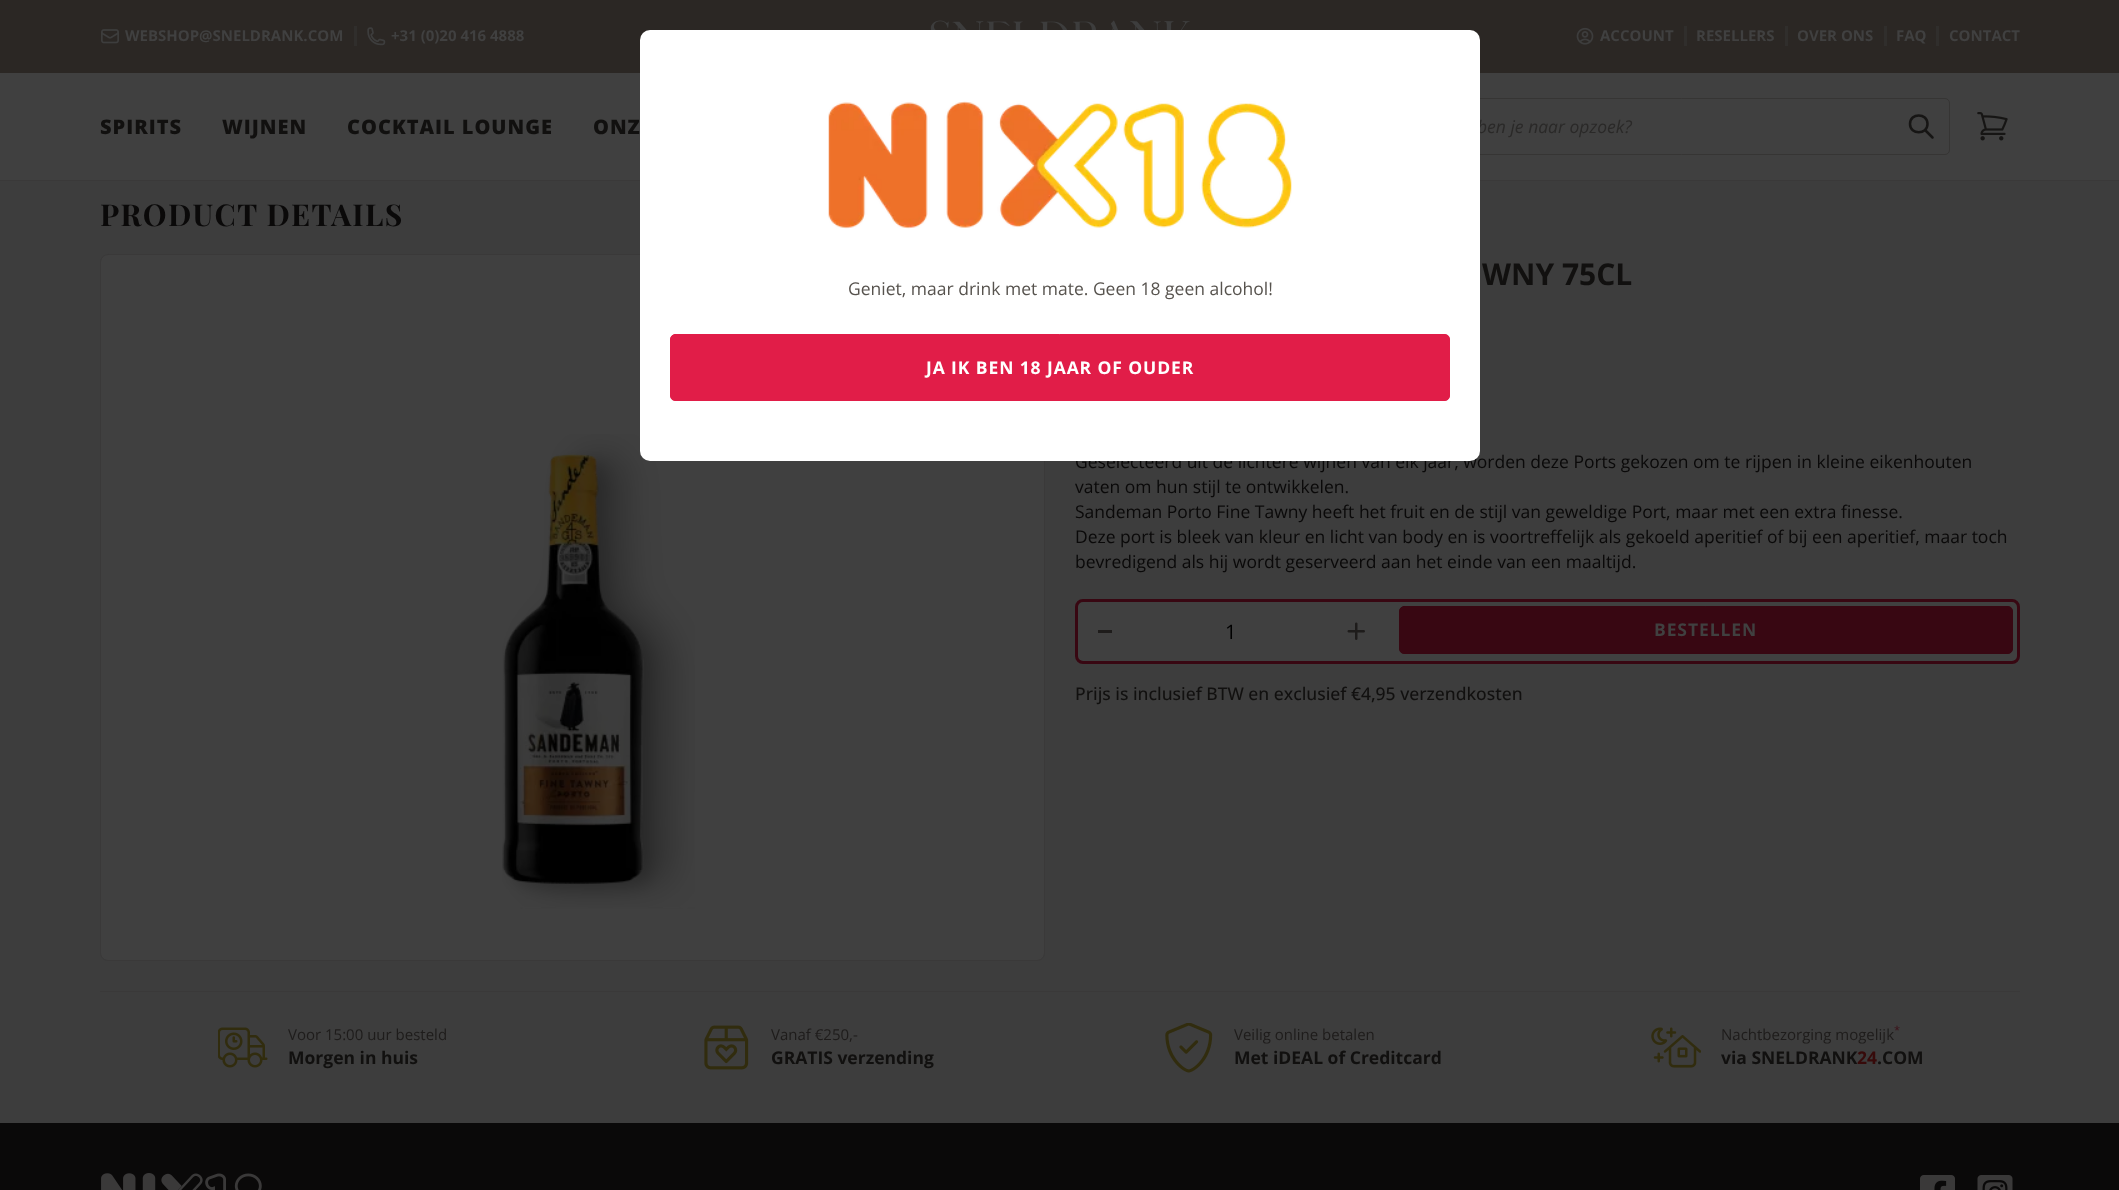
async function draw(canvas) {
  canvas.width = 2119
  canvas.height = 1190
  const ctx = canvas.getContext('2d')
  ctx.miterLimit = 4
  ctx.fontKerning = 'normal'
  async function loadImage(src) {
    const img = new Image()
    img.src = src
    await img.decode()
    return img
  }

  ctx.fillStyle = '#3d3d3d'
  ctx.fillRect(0, 0, 2119, 1190)
  ctx.fillStyle = '#2b2724'
  ctx.fillRect(0, 0, 2119, 73)
  ctx.drawImage(await loadImage('image0.png'), 930, 20, 260, 10)
  ctx.drawImage(await loadImage('image1.png'), 101, 29, 18, 15)
  ctx.font = 'bold 15px Open Sans'
  ctx.fillStyle = '#404040'
  ctx.fillText('WEBSHOP@SNELDRANK.COM', 125, 41)
  ctx.fillStyle = '#302e2c'
  ctx.fillRect(354, 26, 3, 20)
  ctx.drawImage(await loadImage('image2.png'), 367, 27, 19, 19)
  ctx.fillStyle = '#404040'
  ctx.fillText('+31 (0)20 416 4888', 391, 41)
  ctx.drawImage(await loadImage('image3.png'), 1576, 27, 18, 18)
  ctx.fillText('ACCOUNT', 1600, 41)
  ctx.fillStyle = '#302e2c'
  ctx.fillRect(1684, 26, 3, 20)
  ctx.fillStyle = '#404040'
  ctx.fillText('RESELLERS', 1696, 41)
  ctx.fillStyle = '#302e2c'
  ctx.fillRect(1785, 26, 3, 20)
  ctx.fillStyle = '#404040'
  ctx.fillText('OVER ONS', 1797, 41)
  ctx.fillStyle = '#302e2c'
  ctx.fillRect(1884, 26, 3, 20)
  ctx.fillStyle = '#404040'
  ctx.fillText('FAQ', 1896, 41)
  ctx.fillStyle = '#302e2c'
  ctx.fillRect(1936, 26, 3, 20)
  ctx.fillStyle = '#404040'
  ctx.fillText('CONTACT', 1949, 41)
  ctx.fillRect(0, 73, 2119, 107)
  ctx.fillStyle = '#3a3939'
  ctx.fillRect(0, 180, 2119, 1)
  ctx.letterSpacing = '1px'
  ctx.font = '800 20px Open Sans'
  ctx.fillStyle = '#11100f'
  ctx.fillText('SPIRITS', 100, 134)
  ctx.fillText('WIJNEN', 222, 134)
  ctx.fillText('COCKTAIL LOUNGE', 347, 134)
  ctx.fillText('ONZ', 593, 134)
  ctx.beginPath()
  ctx.roundRect(1413.5, 98.5, 536, 56, 4.5)
  ctx.strokeStyle = '#363534'
  ctx.stroke()
  ctx.letterSpacing = '0px'
  ctx.font = 'italic 17.5px Open Sans'
  ctx.fillStyle = '#2a2928'
  ctx.fillText('ben je naar opzoek?', 1477, 133)
  ctx.beginPath()
  ctx.moveTo(1932.5, 137.5)
  ctx.lineTo(1925, 130)
  ctx.moveTo(1927.5, 124)
  ctx.bezierCurveTo(1927.5, 135, 1910, 135, 1910, 124)
  ctx.bezierCurveTo(1910, 112.5, 1927.5, 112.5, 1927.5, 124)
  ctx.closePath()
  ctx.strokeStyle = '#161514'
  ctx.lineWidth = 2.5
  ctx.lineCap = 'round'
  ctx.lineJoin = 'round'
  ctx.stroke()
  ctx.drawImage(await loadImage('image4.png'), 1977, 112, 31, 29)
  ctx.letterSpacing = '1.5px'
  ctx.font = 'bold 30px Playfair Display'
  ctx.fillStyle = '#0a0909'
  ctx.fillText('PRODUCT DETAILS', 100, 226)
  ctx.fillStyle = '#404040'
  ctx.beginPath()
  ctx.roundRect(100.5, 254.5, 944, 706, 7.5)
  ctx.fill()
  ctx.strokeStyle = '#3a3939'
  ctx.lineWidth = 1
  ctx.lineJoin = 'miter'
  ctx.stroke()
  ctx.drawImage(await loadImage('image5.png'), 502, 434, 193, 475)
  ctx.letterSpacing = '0px'
  ctx.font = 'bold 30px Open Sans'
  ctx.fillStyle = '#11100f'
  ctx.fillText('WNY 75CL', 1482, 285)
  ctx.font = '17.5px Open Sans'
  ctx.fillStyle = '#0a0909'
  ctx.fillText('Geselecteerd uit de lichtere wijnen van elk jaar, worden deze Ports gekozen om te rijpen in kleine eikenhouten', 1075, 468)
  ctx.fillText('vaten om hun stijl te ontwikkelen.', 1075, 493)
  ctx.fillText('Sandeman Porto Fine Tawny heeft het fruit en de stijl van geweldige Port, maar met een extra finesse.', 1075, 518)
  ctx.fillText('Deze port is bleek van kleur en licht van body en is voortreffelijk als gekoeld aperitief of bij een aperitief, maar toch', 1075, 543)
  ctx.fillText('bevredigend als hij wordt geserveerd aan het einde van een maaltijd.', 1075, 568)
  ctx.fillStyle = '#404040'
  ctx.beginPath()
  ctx.roundRect(1076.5, 600.5, 942, 62, 6.5)
  ctx.fill()
  ctx.strokeStyle = '#380712'
  ctx.lineWidth = 3
  ctx.stroke()
  ctx.fillStyle = '#1e1c1b'
  ctx.fillRect(1098, 630, 14, 3)
  ctx.font = '20px Open Sans'
  ctx.fillStyle = '#000'
  ctx.fillText('1', 1225, 639)
  ctx.drawImage(await loadImage('image6.png'), 1347, 622, 18, 18)
  ctx.fillStyle = '#380712'
  ctx.beginPath()
  ctx.roundRect(1399.5, 606.5, 613, 47, 4.5)
  ctx.fill()
  ctx.lineWidth = 1
  ctx.stroke()
  ctx.letterSpacing = '0.9px'
  ctx.font = 'bold 17.5px Open Sans'
  ctx.fillStyle = '#404040'
  ctx.fillText('BESTELLEN', 1654, 636)
  ctx.letterSpacing = '0px'
  ctx.font = '500 17.5px Open Sans'
  ctx.fillStyle = '#11100f'
  ctx.fillText('Prijs is inclusief BTW en exclusief €4,95 verzendkosten', 1075, 700)
  ctx.fillStyle = '#3a3939'
  ctx.fillRect(100, 991, 1920, 1)
  ctx.drawImage(await loadImage('image7.png'), 218, 1027, 50, 41)
  ctx.font = '15px Open Sans'
  ctx.fillStyle = '#1e1c1b'
  ctx.fillText('Voor 15:00 uur besteld', 288, 1040)
  ctx.font = 'bold 17.5px Open Sans'
  ctx.fillStyle = '#11100f'
  ctx.fillText('Morgen in huis', 288, 1064)
  ctx.drawImage(await loadImage('image8.png'), 704, 1025, 45, 45)
  ctx.font = '15px Open Sans'
  ctx.fillStyle = '#1e1c1b'
  ctx.fillText('Vanaf €250,-', 771, 1040)
  ctx.font = 'bold 17.5px Open Sans'
  ctx.fillStyle = '#11100f'
  ctx.fillText('GRATIS verzending', 771, 1064)
  ctx.drawImage(await loadImage('image9.png'), 1165, 1023, 48, 50)
  ctx.font = '15px Open Sans'
  ctx.fillStyle = '#1e1c1b'
  ctx.fillText('Veilig online betalen', 1234, 1040)
  ctx.font = 'bold 17.5px Open Sans'
  ctx.fillStyle = '#11100f'
  ctx.fillText('Met iDEAL of Creditcard', 1234, 1064)
  ctx.drawImage(await loadImage('image10.png'), 1651, 1027, 50, 41)
  ctx.font = '15px Open Sans'
  ctx.fillStyle = '#1e1c1b'
  ctx.fillText('Nachtbezorging mogelijk', 1721, 1040)
  ctx.font = '11px Open Sans'
  ctx.fillStyle = '#3d1018'
  ctx.fillText('*', 1894, 1034)
  ctx.font = 'bold 17.5px Open Sans'
  ctx.fillStyle = '#11100f'
  ctx.fillText('via SNELDRANK', 1721, 1064)
  ctx.fillStyle = '#370a0a'
  ctx.fillText('24', 1857, 1064)
  ctx.fillStyle = '#11100f'
  ctx.fillText('.COM', 1877, 1064)
  ctx.fillStyle = '#0a0909'
  ctx.fillRect(0, 1123, 2119, 67)
  ctx.drawImage(await loadImage('image11.png'), 101, 1173, 161, 17)
  ctx.drawImage(await loadImage('image12.png'), 1920, 1175, 35, 15)
  ctx.drawImage(await loadImage('image13.png'), 1977, 1175, 36, 15)
  ctx.fillStyle = '#fff'
  ctx.beginPath()
  ctx.roundRect(640, 30, 840, 431, 10)
  ctx.fill()
  ctx.drawImage(await loadImage('image14.png'), 828, 101, 464, 128)
  ctx.font = '17.5px Open Sans'
  ctx.fillStyle = '#57534e'
  ctx.fillText('Geniet, maar drink met mate. Geen 18 geen alcohol!', 848, 295)
  ctx.fillStyle = '#e11d48'
  ctx.beginPath()
  ctx.roundRect(670.5, 334.5, 779, 66, 4.5)
  ctx.fill()
  ctx.strokeStyle = '#e11d48'
  ctx.stroke()
  ctx.letterSpacing = '0.9px'
  ctx.font = 'bold 17.5px Open Sans'
  ctx.fillStyle = '#fff'
  ctx.fillText('JA IK BEN 18 JAAR OF OUDER', 926, 374)
}

draw(document.querySelector('canvas'))
